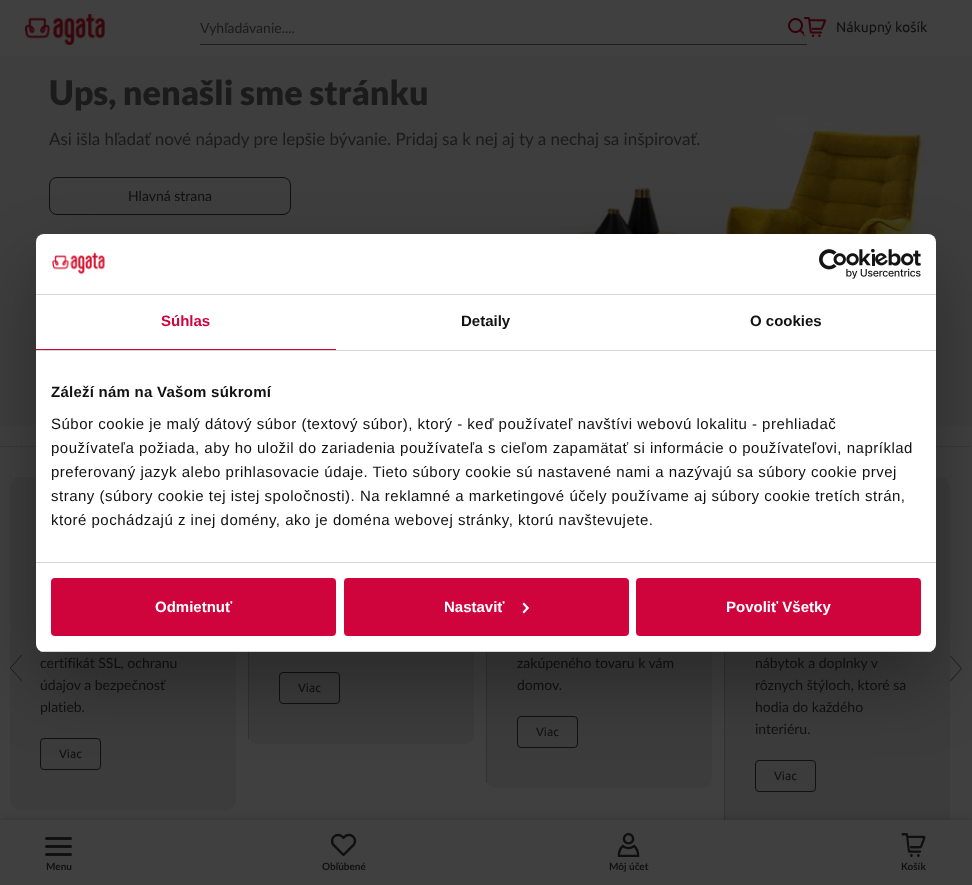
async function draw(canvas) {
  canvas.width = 972
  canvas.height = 885
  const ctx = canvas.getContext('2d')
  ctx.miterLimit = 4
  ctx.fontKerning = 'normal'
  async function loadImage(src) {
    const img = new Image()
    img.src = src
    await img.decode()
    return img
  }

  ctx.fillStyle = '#404040'
  ctx.fillRect(0, 0, 972, 885)
  ctx.drawImage(await loadImage('image0.png'), 25, 14, 80, 31)
  ctx.fillStyle = '#1f1f1f'
  ctx.fillRect(200, 44, 607, 1)
  ctx.font = '14px Lato'
  ctx.fillStyle = '#1b1b1b'
  ctx.fillText('Vyhľadávanie....', 200, 33)
  ctx.drawImage(await loadImage('image1.png'), 788, 18, 18, 18)
  ctx.fillStyle = '#404040'
  ctx.fillRect(804, 32, 2, 3)
  ctx.drawImage(await loadImage('image2.png'), 804, 17, 22, 20)
  ctx.font = '14px Ubuntu'
  ctx.fillStyle = '#111'
  ctx.fillText('Nákupný košík', 836, 32)
  ctx.drawImage(await loadImage('image3.png'), 0, 56, 972, 369)
  ctx.font = '900 34px Lato'
  ctx.fillStyle = '#1b1b1b'
  ctx.fillText('Ups, nenašli sme stránku', 49, 105)
  ctx.font = '17px Lato'
  ctx.fillText('Asi išla hľadať nové nápady pre lepšie bývanie. Pridaj sa k nej aj ty a nechaj sa inšpirovať.', 49, 145)
  ctx.beginPath()
  ctx.roundRect(49.5, 177.5, 241, 37, 7.5)
  ctx.strokeStyle = '#111'
  ctx.stroke()
  ctx.font = '14px Lato'
  ctx.fillStyle = '#111'
  ctx.fillText('Hlavná strana', 128, 201)
  ctx.beginPath()
  ctx.moveTo(0, 446.5)
  ctx.lineTo(972, 446.5)
  ctx.strokeStyle = '#323232'
  ctx.setLineDash([1, 1])
  ctx.stroke()
  ctx.fillStyle = '#3c3c3c'
  ctx.beginPath()
  ctx.roundRect(10, 477, 226, 333, 10)
  ctx.fill()
  ctx.drawImage(await loadImage('image4.png'), 10, 655, 12, 26)
  ctx.drawImage(await loadImage('image5.png'), 950, 655, 12, 27)
  ctx.fillStyle = '#111'
  ctx.fillText('certifikát SSL, ochranu', 40, 668)
  ctx.fillText('údajov a bezpečnosť', 40, 690)
  ctx.fillText('platieb.', 40, 712)
  ctx.beginPath()
  ctx.roundRect(40.5, 738.5, 60, 31, 3.5)
  ctx.strokeStyle = '#111'
  ctx.setLineDash([])
  ctx.stroke()
  ctx.font = '12px Ubuntu'
  ctx.fillText('Viac', 59, 758)
  ctx.fillStyle = '#3c3c3c'
  ctx.beginPath()
  ctx.roundRect(248, 477, 226, 267, 10)
  ctx.fill()
  ctx.fillStyle = '#323232'
  ctx.fillRect(248, 652, 1, 87)
  ctx.beginPath()
  ctx.roundRect(279.5, 672.5, 60, 31, 3.5)
  ctx.stroke()
  ctx.fillStyle = '#111'
  ctx.fillText('Viac', 298, 692)
  ctx.fillStyle = '#3c3c3c'
  ctx.beginPath()
  ctx.roundRect(486, 477, 226, 311, 10)
  ctx.fill()
  ctx.fillStyle = '#323232'
  ctx.fillRect(486, 652, 1, 131)
  ctx.font = '14px Lato'
  ctx.fillStyle = '#111'
  ctx.fillText('zakúpeného tovaru k vám', 517, 668)
  ctx.fillText('domov.', 517, 690)
  ctx.beginPath()
  ctx.roundRect(517.5, 716.5, 60, 31, 3.5)
  ctx.stroke()
  ctx.font = '12px Ubuntu'
  ctx.fillText('Viac', 536, 736)
  ctx.fillStyle = '#3c3c3c'
  ctx.beginPath()
  ctx.roundRect(724, 477, 226, 355, 10)
  ctx.fill()
  ctx.fillStyle = '#323232'
  ctx.fillRect(724, 652, 1, 175)
  ctx.font = '14px Lato'
  ctx.fillStyle = '#111'
  ctx.fillText('nábytok a doplnky v', 755, 668)
  ctx.fillText('rôznych štýloch, ktoré sa', 755, 690)
  ctx.fillText('hodia do každého', 755, 712)
  ctx.fillText('interiéru.', 755, 734)
  ctx.beginPath()
  ctx.roundRect(755.5, 760.5, 60, 31, 3.5)
  ctx.stroke()
  ctx.font = '12px Ubuntu'
  ctx.fillText('Viac', 774, 780)
  ctx.fillStyle = '#0000004d'
  ctx.filter = 'blur(34px)'
  ctx.beginPath()
  ctx.roundRect(36, 266, 900, 418, 8)
  ctx.fill()
  ctx.filter = 'none'
  ctx.fillStyle = '#fff'
  ctx.beginPath()
  ctx.roundRect(36, 234, 900, 418, 8)
  ctx.fill()
  ctx.fillStyle = '#d6d6d6'
  ctx.fillRect(36, 294, 900, 1)
  ctx.drawImage(await loadImage('image6.png'), 52, 252, 53, 23)
  ctx.drawImage(await loadImage('image7.png'), 819, 249, 102, 30)
  ctx.fillRect(36, 350, 900, 1)
  ctx.fillStyle = '#d0043c'
  ctx.fillRect(36, 349, 300, 1)
  ctx.font = 'bold 15px Liberation Sans'
  ctx.fillText('Súhlas', 161, 326)
  ctx.fillStyle = '#111'
  ctx.fillText('Detaily', 461, 326)
  ctx.fillText('O cookies', 750, 326)
  ctx.fillStyle = '#d6d6d6'
  ctx.fillRect(36, 562, 900, 1)
  ctx.letterSpacing = '0.25px'
  ctx.fillStyle = '#111'
  ctx.fillText('Záleží nám na Vašom súkromí', 51, 397)
  ctx.letterSpacing = '0.5px'
  ctx.font = '15px Liberation Sans'
  ctx.fillText('Súbor cookie je malý dátový súbor (textový súbor), ktorý - keď používateľ navštívi webovú lokalitu - prehliadač', 51, 429)
  ctx.fillText('používateľa požiada, aby ho uložil do zariadenia používateľa s cieľom zapamätať si informácie o používateľovi, napríklad', 51, 453)
  ctx.fillText('preferovaný jazyk alebo prihlasovacie údaje. Tieto súbory cookie sú nastavené nami a nazývajú sa súbory cookie prvej', 51, 477)
  ctx.fillText('strany (súbory cookie tej istej spoločnosti). Na reklamné a marketingové účely používame aj súbory cookie tretích strán,', 51, 501)
  ctx.fillText('ktoré pochádzajú z inej domény, ako je doména webovej stránky, ktorú navštevujete.', 51, 525)
  ctx.save()
  ctx.beginPath()
  ctx.roundRect(36, 234, 900, 418, 8)
  ctx.clip()
  ctx.fillStyle = '#d6d6d6'
  ctx.fillRect(36, 651, 900, 1)
  ctx.restore()
  ctx.fillStyle = '#d0043c'
  ctx.beginPath()
  ctx.roundRect(52, 579, 283, 56, 3)
  ctx.fill()
  ctx.strokeStyle = '#d0043c'
  ctx.lineWidth = 2
  ctx.stroke()
  ctx.letterSpacing = '0px'
  ctx.font = 'bold 15px Liberation Sans'
  ctx.fillStyle = '#fff'
  ctx.fillText('Odmietnuť', 155, 612)
  ctx.fillStyle = '#d0043c'
  ctx.beginPath()
  ctx.roundRect(345, 579, 283, 56, 3)
  ctx.fill()
  ctx.stroke()
  ctx.fillStyle = '#fff'
  ctx.fillText('Nastaviť', 444, 612)
  ctx.beginPath()
  ctx.moveTo(524, 602.5)
  ctx.lineTo(529, 608)
  ctx.lineTo(527.5, 609.5)
  ctx.lineTo(522.5, 604)
  ctx.closePath()
  ctx.fill()
  ctx.beginPath()
  ctx.moveTo(527.5, 606.5)
  ctx.lineTo(529, 608)
  ctx.lineTo(524, 613.5)
  ctx.lineTo(522.5, 612)
  ctx.closePath()
  ctx.fill()
  ctx.fillStyle = '#d0043c'
  ctx.beginPath()
  ctx.roundRect(637, 579, 283, 56, 3)
  ctx.fill()
  ctx.stroke()
  ctx.fillStyle = '#fff'
  ctx.fillText('Povoliť Všetky', 726, 612)
  ctx.fillStyle = '#00000033'
  ctx.filter = 'blur(5px)'
  ctx.beginPath()
  ctx.rect(0, 820, 972, 65)
  ctx.fill()
  ctx.filter = 'none'
  ctx.fillStyle = '#404040'
  ctx.fillRect(0, 820, 972, 65)
  ctx.fillStyle = '#111'
  ctx.beginPath()
  ctx.roundRect(45, 837, 27, 3, 1.5)
  ctx.fill()
  ctx.beginPath()
  ctx.roundRect(45, 845, 27, 3, 1.5)
  ctx.fill()
  ctx.beginPath()
  ctx.roundRect(45, 853, 27, 3, 1.5)
  ctx.fill()
  ctx.font = 'bold 10px Lato'
  ctx.fillText('Menu', 46, 870)
  ctx.drawImage(await loadImage('image8.png'), 330, 833, 27, 24)
  ctx.fillText('Obľúbené', 322, 870)
  ctx.drawImage(await loadImage('image9.png'), 617, 833, 23, 24)
  ctx.fillText('Môj účet', 609, 870)
  ctx.drawImage(await loadImage('image10.png'), 901, 833, 25, 24)
  ctx.fillText('Košík', 901, 870)
}

draw(document.querySelector('canvas'))
